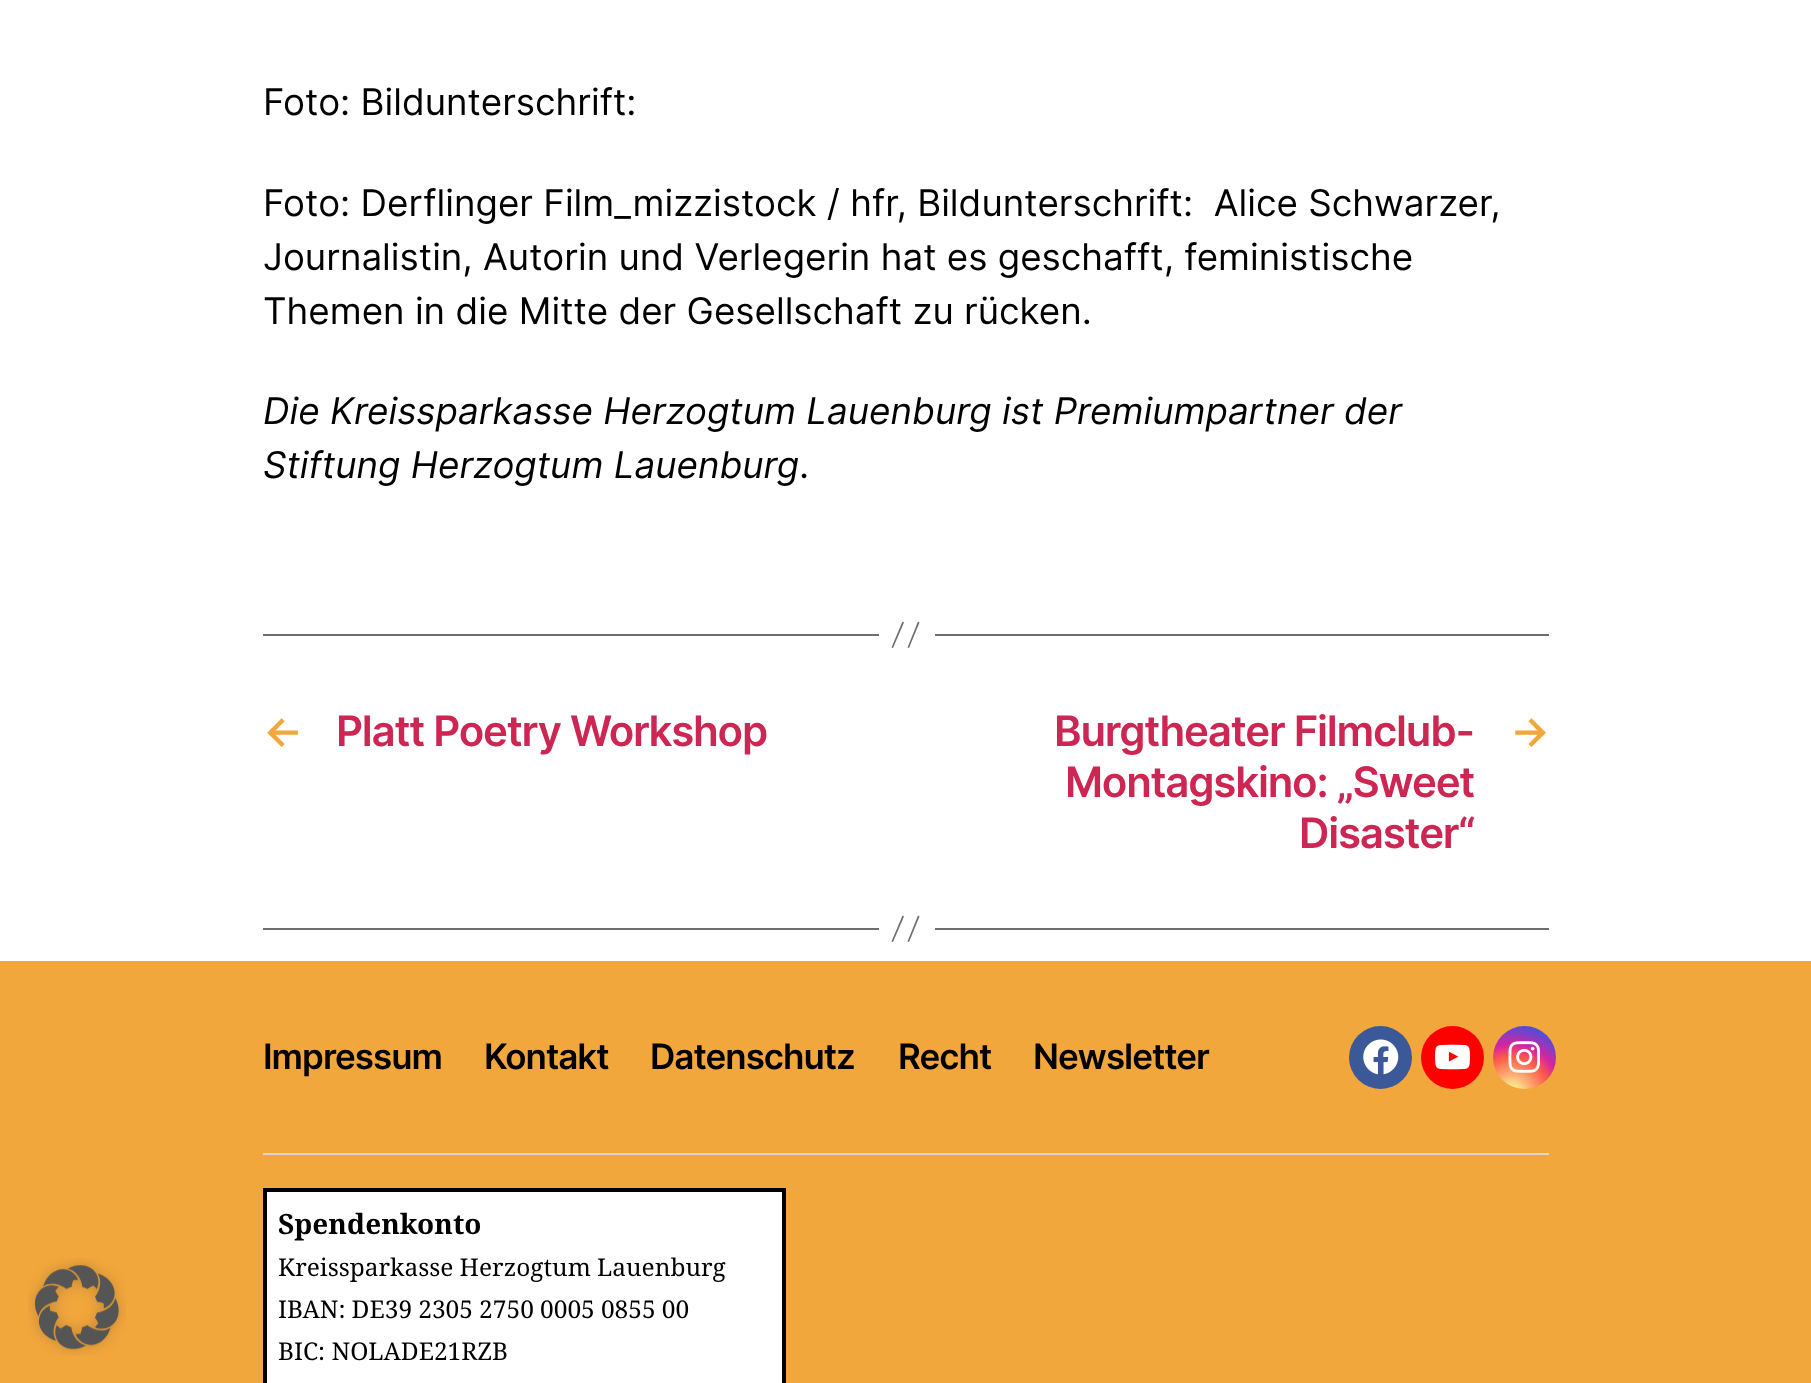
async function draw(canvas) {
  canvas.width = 1811
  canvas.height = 1383
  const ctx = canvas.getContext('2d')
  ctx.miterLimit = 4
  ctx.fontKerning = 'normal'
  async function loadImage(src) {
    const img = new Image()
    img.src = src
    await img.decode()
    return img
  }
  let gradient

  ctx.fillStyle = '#fff'
  ctx.fillRect(0, 0, 1811, 1383)
  ctx.font = '36.75px Inter'
  ctx.fillStyle = '#000'
  ctx.fillText('Foto: Bildunterschrift:', 263, 115)
  ctx.fillText('Foto: Derflinger Film_mizzistock / hfr, Bildunterschrift:  Alice Schwarzer,', 263, 216)
  ctx.fillText('Journalistin, Autorin und Verlegerin hat es geschafft, feministische', 263, 270)
  ctx.fillText('Themen in die Mitte der Gesellschaft zu rücken.', 263, 324)
  ctx.font = 'italic 36.75px Inter'
  ctx.fillText('Die Kreissparkasse Herzogtum Lauenburg ist Premiumpartner der', 263, 424)
  ctx.fillText('Stiftung Herzogtum Lauenburg', 263, 478)
  ctx.font = '36.75px Inter'
  ctx.fillText('.', 799, 478)
  ctx.fillStyle = '#6d6d6d'
  ctx.fillRect(935, 634, 614, 2)
  ctx.fillRect(263, 634, 616, 2)
  ctx.beginPath()
  ctx.moveTo(902.5, 621.5)
  ctx.lineTo(904, 622.5)
  ctx.lineTo(893, 648)
  ctx.lineTo(891.5, 647.5)
  ctx.closePath()
  ctx.moveTo(918, 621.5)
  ctx.lineTo(919.5, 622.5)
  ctx.lineTo(909, 648)
  ctx.lineTo(907.5, 647.5)
  ctx.closePath()
  ctx.fill()
  ctx.letterSpacing = '-1.2px'
  ctx.font = '600 42px Inter'
  ctx.fillStyle = '#f2a73d'
  ctx.fillText('←', 263, 746)
  ctx.fillStyle = '#cd2653'
  ctx.fillText('Platt Poetry Workshop', 336, 746)
  ctx.fillText('Burgtheater Filmclub-', 1054, 746)
  ctx.fillText('Montagskino: „Sweet', 1065, 797)
  ctx.fillText('Disaster“', 1299, 848)
  ctx.fillStyle = '#f2a73d'
  ctx.fillText('→', 1510, 746)
  ctx.fillStyle = '#6d6d6d'
  ctx.fillRect(935, 928, 614, 2)
  ctx.fillRect(263, 928, 616, 2)
  ctx.beginPath()
  ctx.moveTo(902.5, 915.5)
  ctx.lineTo(904, 916.5)
  ctx.lineTo(893, 942)
  ctx.lineTo(891.5, 941.5)
  ctx.closePath()
  ctx.moveTo(918, 915.5)
  ctx.lineTo(919.5, 916.5)
  ctx.lineTo(909, 942)
  ctx.lineTo(907.5, 941.5)
  ctx.closePath()
  ctx.fill()
  ctx.fillStyle = '#f2a73d'
  ctx.fillRect(0, 961, 1811, 422)
  ctx.drawImage(await loadImage('image0.png'), 28, 1258, 98, 98)
  ctx.fillStyle = '#dcd7ca'
  ctx.fillRect(263, 1153, 1286, 2)
  ctx.letterSpacing = '-1px'
  ctx.font = '600 35px Inter'
  ctx.fillStyle = '#000'
  ctx.fillText('Impressum', 263, 1069)
  ctx.fillText('Kontakt', 484, 1069)
  ctx.fillText('Datenschutz', 650, 1069)
  ctx.fillText('Recht', 898, 1069)
  ctx.fillText('Newsletter', 1033, 1069)
  ctx.fillStyle = '#3b5998'
  ctx.beginPath()
  ctx.arc(1380.5, 1057.5, 31.5, 0, 2 * Math.PI)
  ctx.fill()
  ctx.drawImage(await loadImage('image1.png'), 1363, 1039, 36, 36)
  ctx.fillStyle = '#f00'
  ctx.beginPath()
  ctx.arc(1452.5, 1057.5, 31.5, 0, 2 * Math.PI)
  ctx.fill()
  ctx.drawImage(await loadImage('image2.png'), 1435, 1044, 35, 26)
  gradient = ctx.createRadialGradient(1512, 1093, 0, 1512, 1093, 81)
  gradient.addColorStop(0, '#fdf497')
  gradient.addColorStop(0.05, '#fdf497')
  gradient.addColorStop(0.45, '#fd5949')
  gradient.addColorStop(0.6, '#d6249f')
  gradient.addColorStop(0.9, '#285aeb')
  ctx.fillStyle = gradient
  ctx.beginPath()
  ctx.arc(1524.5, 1057.5, 31.5, 0, 2 * Math.PI)
  ctx.fill()
  ctx.drawImage(await loadImage('image3.png'), 1508, 1041, 32, 32)
  ctx.fillStyle = '#fff'
  ctx.beginPath()
  ctx.rect(265, 1190, 519, 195)
  ctx.fill()
  ctx.strokeStyle = '#000'
  ctx.lineWidth = 4
  ctx.stroke()
  ctx.letterSpacing = '0px'
  ctx.font = 'bold 28px Noto Serif'
  ctx.fillStyle = '#000'
  ctx.fillText('Spendenkonto', 278, 1234)
  ctx.wordSpacing = '-0.25px'
  ctx.font = '24.5px Noto Serif'
  ctx.fillText('Kreissparkasse Herzogtum Lauenburg', 278, 1276)
  ctx.fillText('IBAN: DE39 2305 2750 0005 0855 00', 278, 1318)
  ctx.wordSpacing = '0px'
  ctx.fillText('BIC: NOLADE21RZB', 278, 1360)
}

draw(document.querySelector('canvas'))
